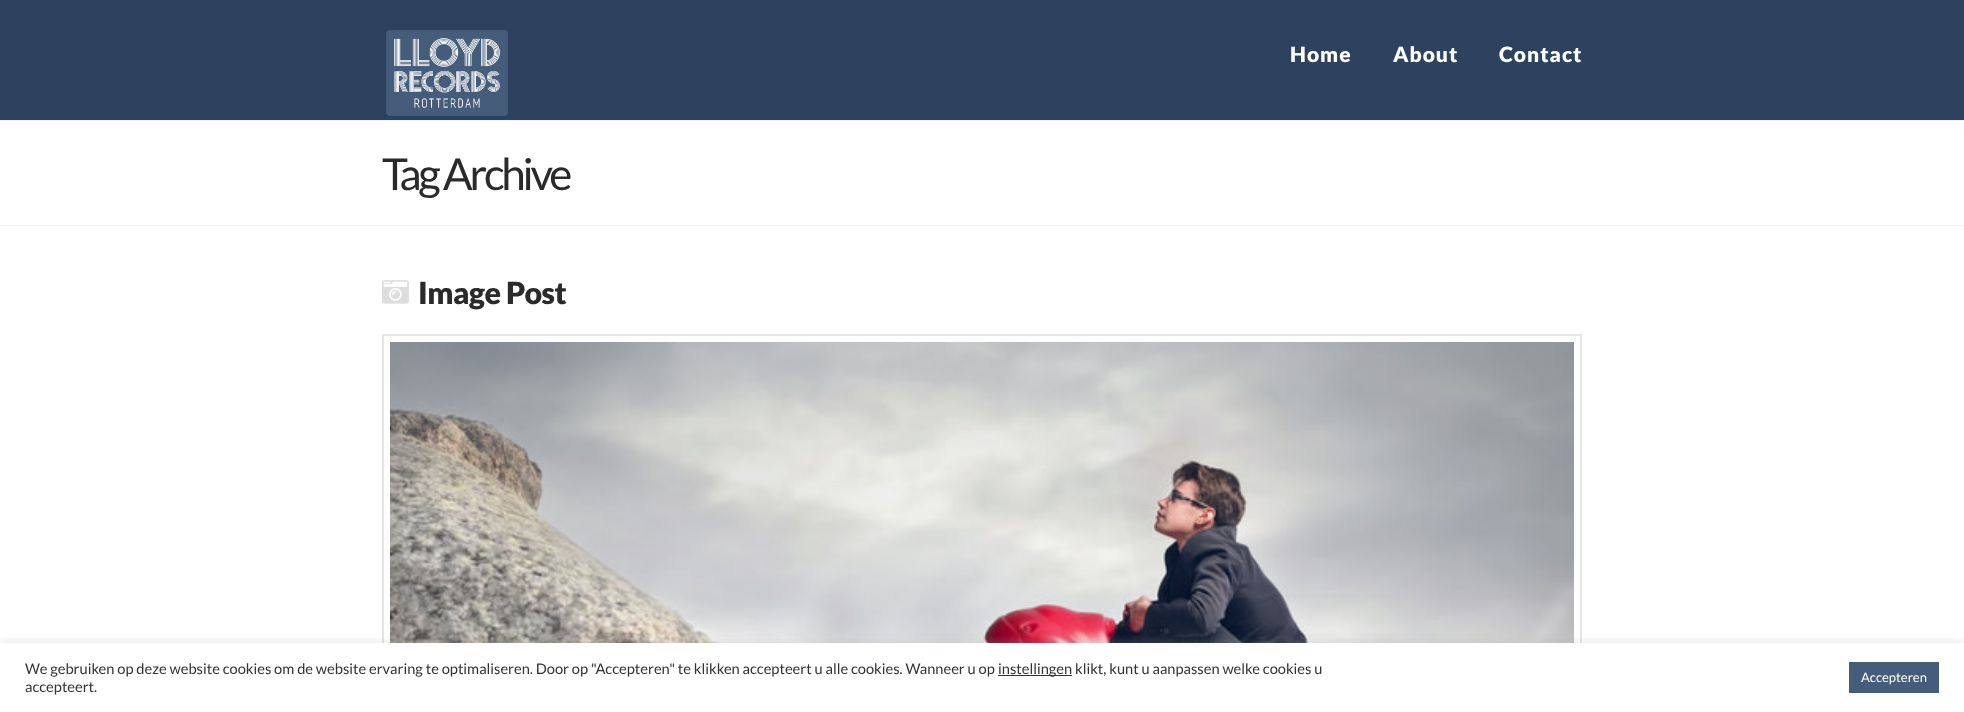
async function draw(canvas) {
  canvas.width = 1964
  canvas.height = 712
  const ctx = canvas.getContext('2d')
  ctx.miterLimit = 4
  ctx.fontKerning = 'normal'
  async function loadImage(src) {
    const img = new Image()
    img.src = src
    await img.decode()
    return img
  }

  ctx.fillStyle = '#fff'
  ctx.fillRect(0, 0, 1964, 712)
  ctx.fillStyle = '#2d425f'
  ctx.fillRect(0, 0, 1964, 120)
  ctx.drawImage(await loadImage('image0.png'), 386, 30, 122, 86)
  ctx.letterSpacing = '1px'
  ctx.font = '900 21px Lato'
  ctx.fillStyle = '#fff'
  ctx.fillText('Home', 1290, 62)
  ctx.fillText('About', 1393, 62)
  ctx.fillText('Contact', 1499, 62)
  ctx.fillStyle = '#f2f2f2'
  ctx.fillRect(0, 120, 1964, 1)
  ctx.fillRect(0, 225, 1964, 1)
  ctx.letterSpacing = '-3.25px'
  ctx.font = '44px Lato'
  ctx.fillStyle = '#2a2a2a'
  ctx.fillText('Tag Archive', 382, 190)
  ctx.drawImage(await loadImage('image1.png'), 382, 280, 27, 24)
  ctx.letterSpacing = '-0.5px'
  ctx.font = '900 30.5px Lato'
  ctx.fillText('Image Post', 418, 304)
  ctx.strokeStyle = '#e5e5e5'
  ctx.lineWidth = 2
  ctx.strokeRect(383, 335, 1198, 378)
  ctx.drawImage(await loadImage('image2.png'), 390, 342, 1184, 301)
  ctx.fillStyle = '#acabab4d'
  ctx.filter = 'blur(5px)'
  ctx.beginPath()
  ctx.rect(0, 642, 1964, 69)
  ctx.fill()
  ctx.filter = 'none'
  ctx.fillStyle = '#fff'
  ctx.fillRect(0, 643, 1964, 69)
  ctx.letterSpacing = '0px'
  ctx.font = '14.67px Lato'
  ctx.fillStyle = '#333'
  ctx.fillText('We gebruiken op deze website cookies om de website ervaring te optimaliseren. Door op "Accepteren" te klikken accepteert u alle cookies. Wanneer u op', 25, 674)
  ctx.fillRect(998, 675, 74, 1)
  ctx.fillText('instellingen klikt, kunt u aanpassen welke cookies u', 998, 674)
  ctx.fillText('accepteert.', 25, 692)
  ctx.fillStyle = '#455d7a'
  ctx.fillRect(1849, 662, 90, 31)
  ctx.font = '13px Lato'
  ctx.fillStyle = '#fff'
  ctx.fillText('Accepteren', 1861, 682)
}

draw(document.querySelector('canvas'))
